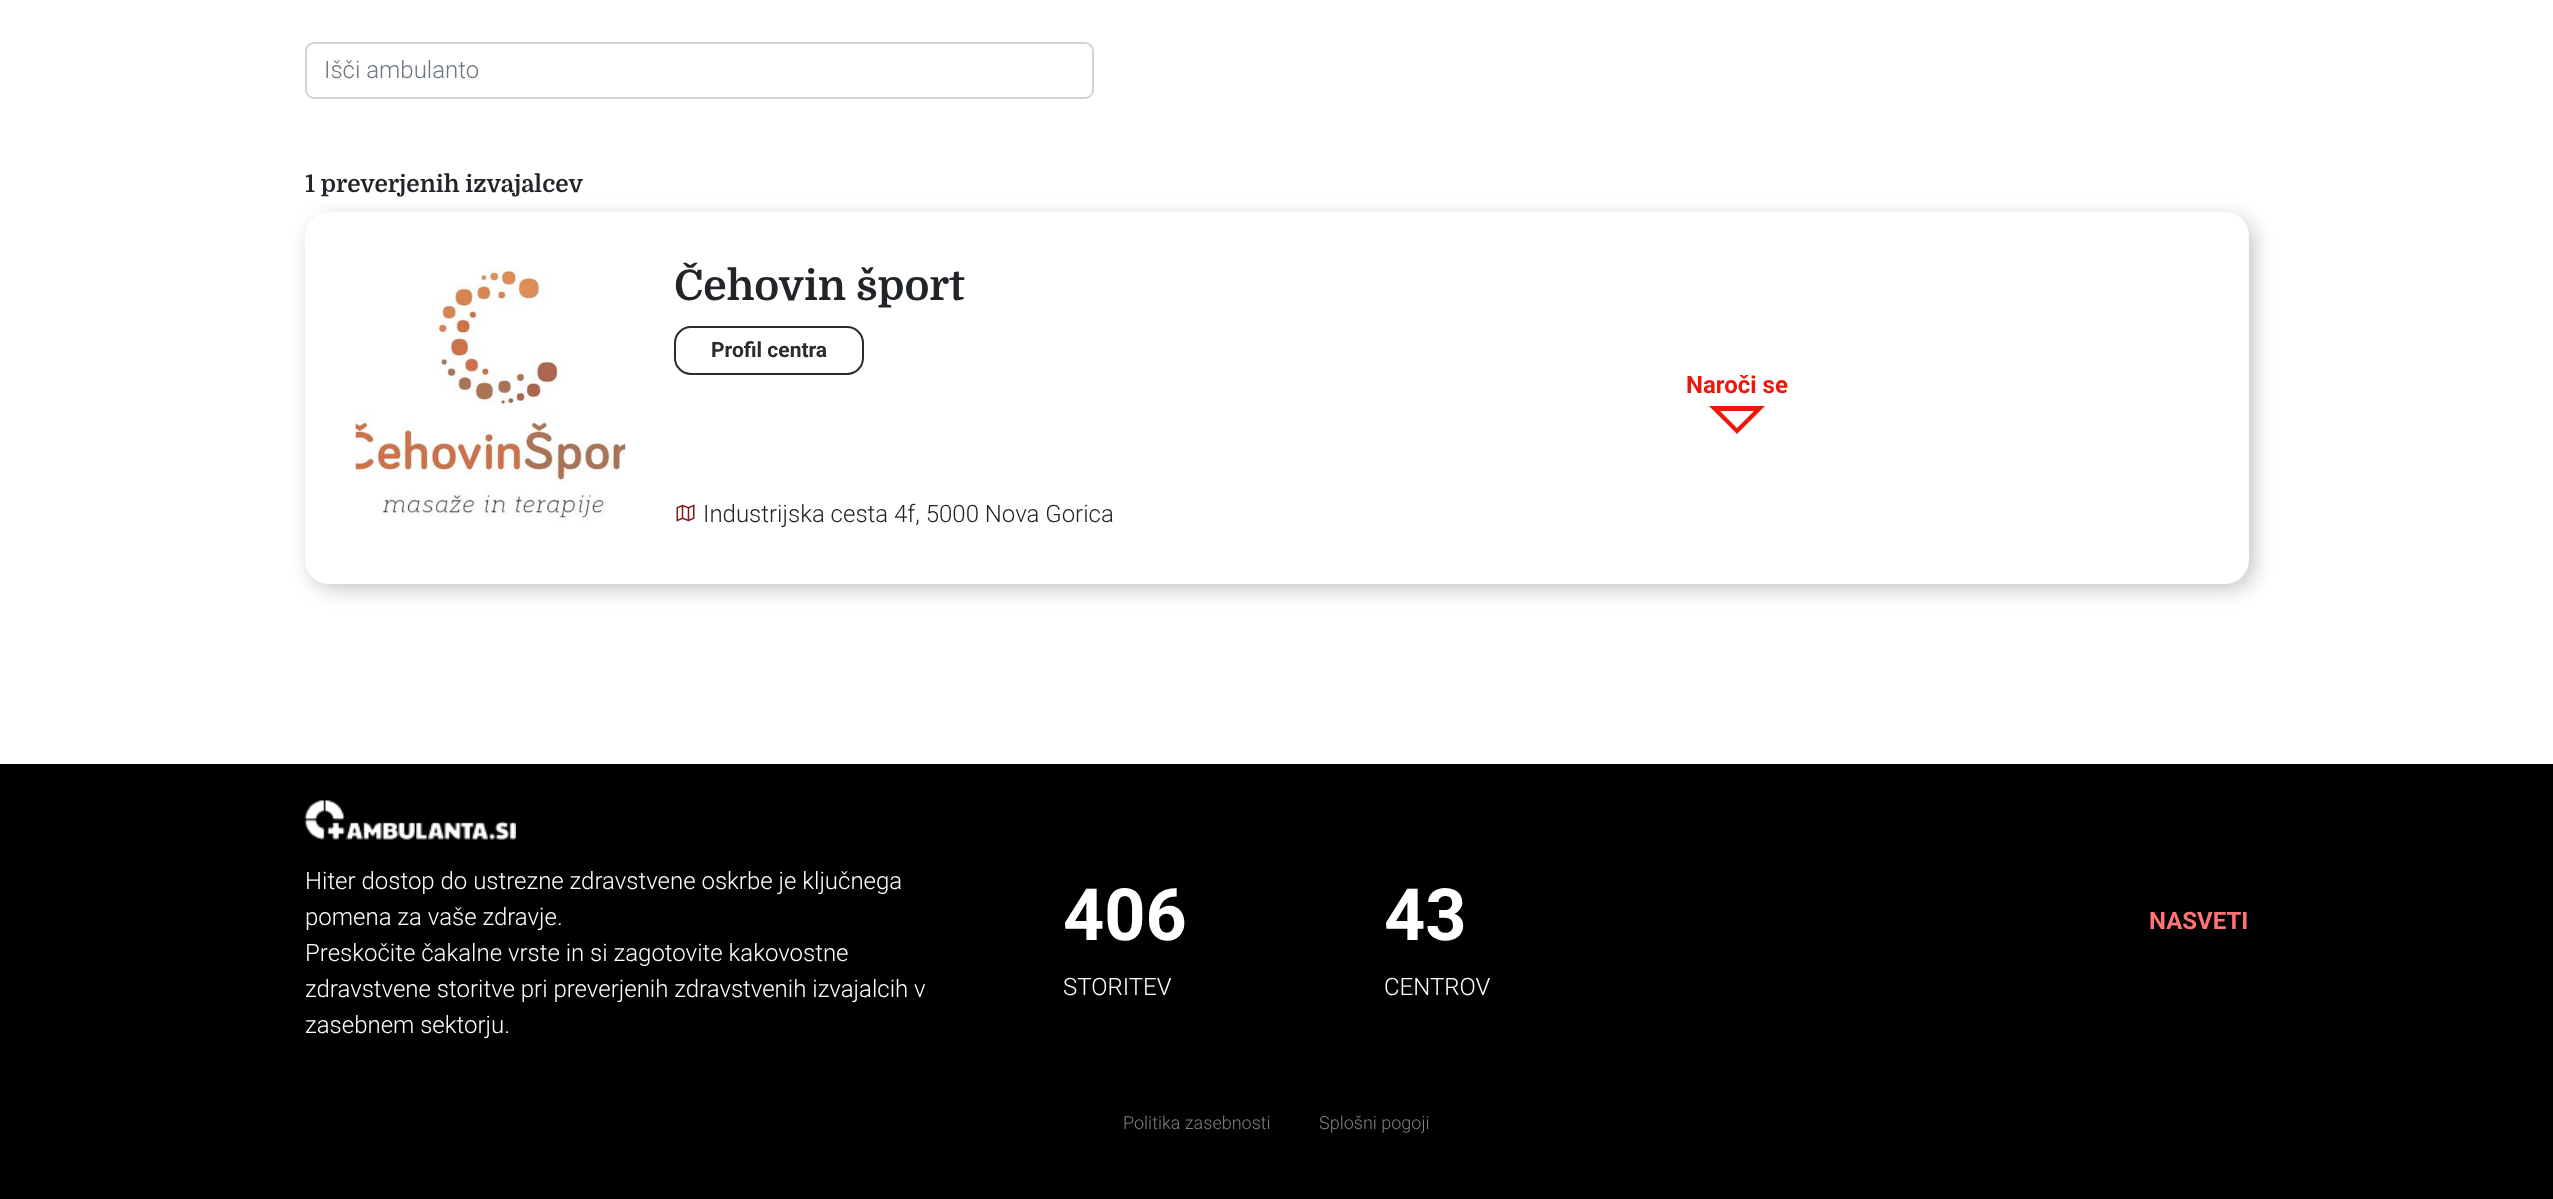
async function draw(canvas) {
  canvas.width = 2553
  canvas.height = 1199
  const ctx = canvas.getContext('2d')
  ctx.miterLimit = 4
  ctx.fontKerning = 'normal'
  async function loadImage(src) {
    const img = new Image()
    img.src = src
    await img.decode()
    return img
  }

  ctx.fillStyle = '#fff'
  ctx.fillRect(0, 0, 2553, 1199)
  ctx.beginPath()
  ctx.roundRect(306, 43, 787, 55, 8)
  ctx.strokeStyle = '#ced4da'
  ctx.lineWidth = 2
  ctx.stroke()
  ctx.font = '300 24px Roboto'
  ctx.fillStyle = '#6c757d'
  ctx.fillText('Išči ambulanto', 324, 78)
  ctx.fillStyle = '#00000040'
  ctx.filter = 'blur(10.5px)'
  ctx.beginPath()
  ctx.roundRect(312, 219, 1941, 369, 23)
  ctx.fill()
  ctx.filter = 'none'
  ctx.font = 'bold 24px Domine'
  ctx.fillStyle = '#212529'
  ctx.fillText('1 preverjenih izvajalcev', 305, 192)
  ctx.fillStyle = '#fff'
  ctx.beginPath()
  ctx.roundRect(305, 212, 1944, 372, 24)
  ctx.fill()
  ctx.drawImage(await loadImage('image0.png'), 355, 267, 271, 254)
  ctx.font = 'bold 42px Domine'
  ctx.fillStyle = '#212529'
  ctx.fillText('Čehovin šport', 674, 300)
  ctx.beginPath()
  ctx.roundRect(675, 327, 188, 47, 16)
  ctx.strokeStyle = '#2b2b2b'
  ctx.stroke()
  ctx.font = 'bold 21px Roboto'
  ctx.fillStyle = '#2b2b2b'
  ctx.fillText('Profil centra', 711, 357)
  ctx.drawImage(await loadImage('image1.png'), 676, 504, 19, 18)
  ctx.font = '300 24px Roboto'
  ctx.fillStyle = '#212529'
  ctx.fillText('Industrijska cesta 4f, 5000 Nova Gorica', 703, 522)
  ctx.font = 'bold 24px Roboto'
  ctx.fillStyle = '#ec180b'
  ctx.fillText('Naroči se', 1686, 393)
  ctx.beginPath()
  ctx.moveTo(1709, 406)
  ctx.lineTo(1737, 434)
  ctx.lineTo(1765, 406)
  ctx.closePath()
  ctx.moveTo(1720, 411)
  ctx.lineTo(1754, 411)
  ctx.lineTo(1737, 428)
  ctx.closePath()
  ctx.fill()
  ctx.fillStyle = '#000'
  ctx.fillRect(0, 764, 2553, 435)
  ctx.drawImage(await loadImage('image2.png'), 304, 800, 212, 40)
  ctx.font = '300 24px Roboto'
  ctx.fillStyle = '#fff'
  ctx.fillText('Hiter dostop do ustrezne zdravstvene oskrbe je ključnega', 305, 889)
  ctx.fillText('pomena za vaše zdravje.', 305, 925)
  ctx.fillText('Preskočite čakalne vrste in si zagotovite kakovostne', 305, 961)
  ctx.fillText('zdravstvene storitve pri preverjenih zdravstvenih izvajalcih v', 305, 997)
  ctx.fillText('zasebnem sektorju.', 305, 1033)
  ctx.font = 'bold 72px Roboto'
  ctx.fillText('406', 1063, 940)
  ctx.font = '300 24px Roboto'
  ctx.fillText('STORITEV', 1063, 995)
  ctx.font = 'bold 72px Roboto'
  ctx.fillText('43', 1384, 940)
  ctx.font = '300 24px Roboto'
  ctx.fillText('CENTROV', 1384, 995)
  ctx.font = 'bold 24px Roboto'
  ctx.fillStyle = '#ff7373'
  ctx.fillText('NASVETI', 2149, 929)
  ctx.font = '300 18px Roboto'
  ctx.fillStyle = '#808080'
  ctx.fillText('Politika zasebnosti', 1123, 1129)
  ctx.fillText('Splošni pogoji', 1319, 1129)
}

draw(document.querySelector('canvas'))
